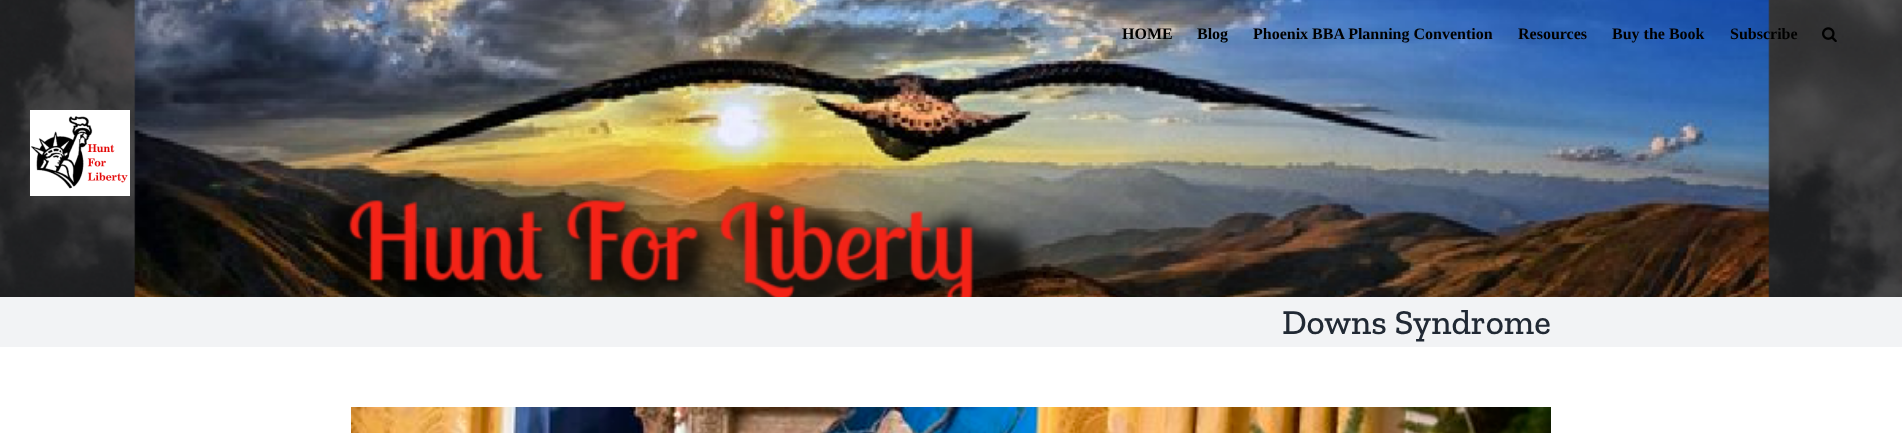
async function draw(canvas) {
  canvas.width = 1902
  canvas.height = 433
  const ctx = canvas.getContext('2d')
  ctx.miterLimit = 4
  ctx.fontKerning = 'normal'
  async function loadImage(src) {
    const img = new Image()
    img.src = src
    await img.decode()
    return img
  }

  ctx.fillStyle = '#fff'
  ctx.fillRect(0, 0, 1902, 433)
  ctx.drawImage(await loadImage('image0.png'), 0, 0, 1902, 297)
  ctx.font = 'bold 16px Liberation Serif'
  ctx.fillStyle = '#000'
  ctx.fillText('HOME', 1122, 39)
  ctx.fillText('Blog', 1197, 39)
  ctx.fillText('Phoenix BBA Planning Convention', 1253, 39)
  ctx.fillText('Resources', 1518, 39)
  ctx.fillText('Buy the Book', 1612, 39)
  ctx.fillText('Subscribe', 1730, 39)
  ctx.drawImage(await loadImage('image1.png'), 1822, 27, 15, 15)
  ctx.drawImage(await loadImage('image2.png'), 30, 110, 100, 86)
  ctx.fillStyle = '#f2f3f5'
  ctx.fillRect(0, 297, 1902, 50)
  ctx.font = '500 35px Zilla Slab'
  ctx.fillStyle = '#212934'
  ctx.fillText('Downs Syndrome', 1282, 334)
  ctx.drawImage(await loadImage('image3.png'), 351, 407, 1200, 26)
}

draw(document.querySelector('canvas'))
